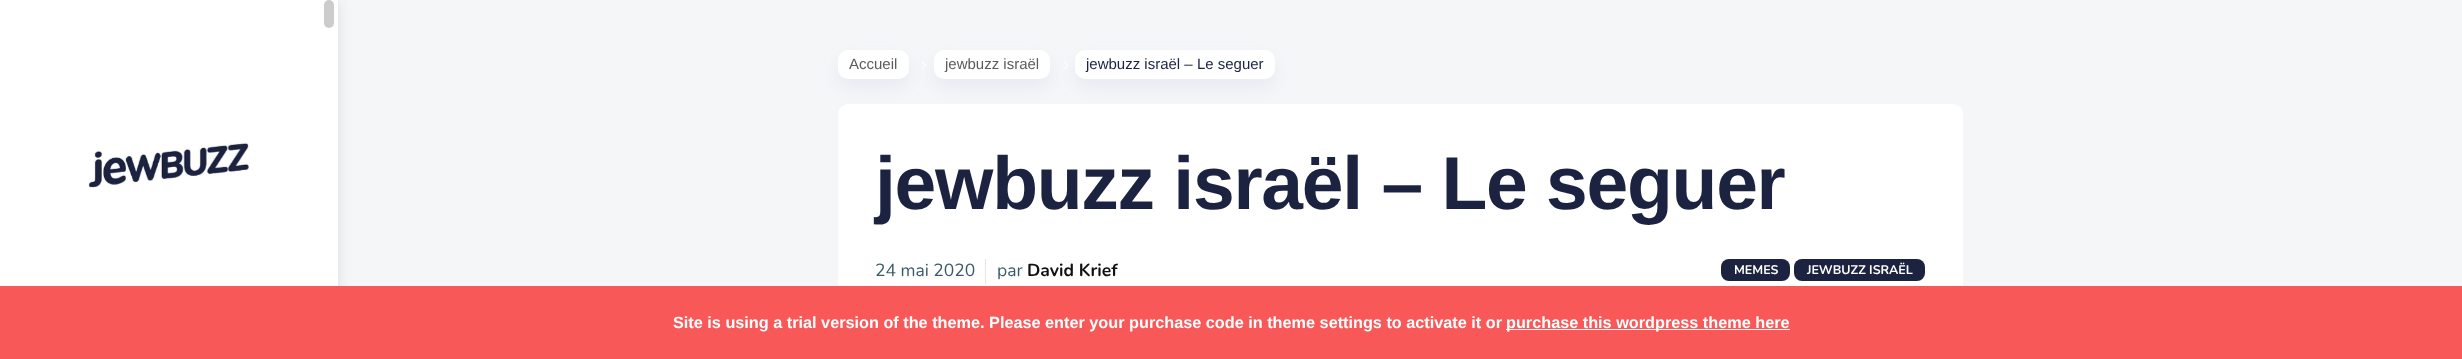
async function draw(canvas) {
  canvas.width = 2462
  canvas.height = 359
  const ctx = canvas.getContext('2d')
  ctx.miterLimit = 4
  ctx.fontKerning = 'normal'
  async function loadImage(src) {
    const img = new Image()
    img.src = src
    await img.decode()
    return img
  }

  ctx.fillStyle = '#f5f6f8'
  ctx.fillRect(0, 0, 2462, 359)
  ctx.fillStyle = '#8080802e'
  ctx.filter = 'blur(6px)'
  ctx.beginPath()
  ctx.rect(1, 1, 338, 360)
  ctx.fill()
  ctx.filter = 'none'
  ctx.fillStyle = '#fff'
  ctx.fillRect(0, 0, 338, 286)
  ctx.fillStyle = '#ccc'
  ctx.beginPath()
  ctx.roundRect(324, 0, 10, 28, 5)
  ctx.fill()
  ctx.drawImage(await loadImage('image0.png'), 87, 142, 163, 47)
  ctx.fillStyle = '#97a0cc1f'
  ctx.filter = 'blur(9px)'
  ctx.beginPath()
  ctx.roundRect(838, 59, 71, 29, 10)
  ctx.fill()
  ctx.filter = 'none'
  ctx.fillStyle = '#fff'
  ctx.beginPath()
  ctx.roundRect(838, 50, 71, 29, 10)
  ctx.fill()
  ctx.font = '15px Liberation Sans'
  ctx.fillStyle = '#5c5c5c'
  ctx.fillText('Accueil', 849, 69)
  ctx.drawImage(await loadImage('image1.png'), 922, 61, 4, 8)
  ctx.fillStyle = '#97a0cc1f'
  ctx.filter = 'blur(9px)'
  ctx.beginPath()
  ctx.roundRect(934, 59, 116, 29, 10)
  ctx.fill()
  ctx.filter = 'none'
  ctx.fillStyle = '#fff'
  ctx.beginPath()
  ctx.roundRect(934, 50, 116, 29, 10)
  ctx.fill()
  ctx.fillStyle = '#5c5c5c'
  ctx.fillText('jewbuzz israël', 945, 69)
  ctx.drawImage(await loadImage('image2.png'), 1064, 61, 5, 8)
  ctx.fillStyle = '#97a0cc1f'
  ctx.filter = 'blur(9px)'
  ctx.beginPath()
  ctx.roundRect(1075, 59, 200, 29, 10)
  ctx.fill()
  ctx.filter = 'none'
  ctx.fillStyle = '#fff'
  ctx.beginPath()
  ctx.roundRect(1075, 50, 200, 29, 10)
  ctx.fill()
  ctx.fillStyle = '#1b2341'
  ctx.fillText('jewbuzz israël – Le seguer', 1086, 69)
  ctx.fillStyle = '#fff'
  ctx.beginPath()
  ctx.roundRect(838, 104, 1125, 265, 10)
  ctx.fill()
  ctx.letterSpacing = '-1.25px'
  ctx.font = 'bold 75px Liberation Sans'
  ctx.fillStyle = '#1b2341'
  ctx.fillText('jewbuzz israël – Le seguer', 875, 209)
  ctx.letterSpacing = '0px'
  ctx.font = '17.5px Nunito'
  ctx.fillStyle = '#3c5b68'
  ctx.fillText('24 mai 2020', 875, 276)
  ctx.fillStyle = '#e6e6e6'
  ctx.fillRect(985, 259, 1, 25)
  ctx.fillStyle = '#3c5b68'
  ctx.fillText('par', 997, 276)
  ctx.font = 'bold 17.5px Nunito'
  ctx.fillStyle = '#111'
  ctx.fillText('David Krief', 1027, 276)
  ctx.fillStyle = '#1b2341'
  ctx.beginPath()
  ctx.roundRect(1721, 259, 69, 22, 8)
  ctx.fill()
  ctx.font = 'bold 12.5px Nunito'
  ctx.fillStyle = '#fff'
  ctx.fillText('MEMES', 1734, 274)
  ctx.fillStyle = '#1b2341'
  ctx.beginPath()
  ctx.roundRect(1794, 259, 131, 22, 8)
  ctx.fill()
  ctx.fillStyle = '#fff'
  ctx.fillText('JEWBUZZ ISRAËL', 1807, 274)
  ctx.fillStyle = '#f95858'
  ctx.fillRect(0, 286, 2462, 73)
  ctx.font = 'bold 16.25px Liberation Sans'
  ctx.fillStyle = '#fff'
  ctx.fillText('Site is using a trial version of the theme. Please enter your purchase code in theme settings to activate it or', 673, 328)
  ctx.fillRect(1506, 329, 284, 1)
  ctx.fillText('purchase this wordpress theme here', 1506, 328)
}

draw(document.querySelector('canvas'))
